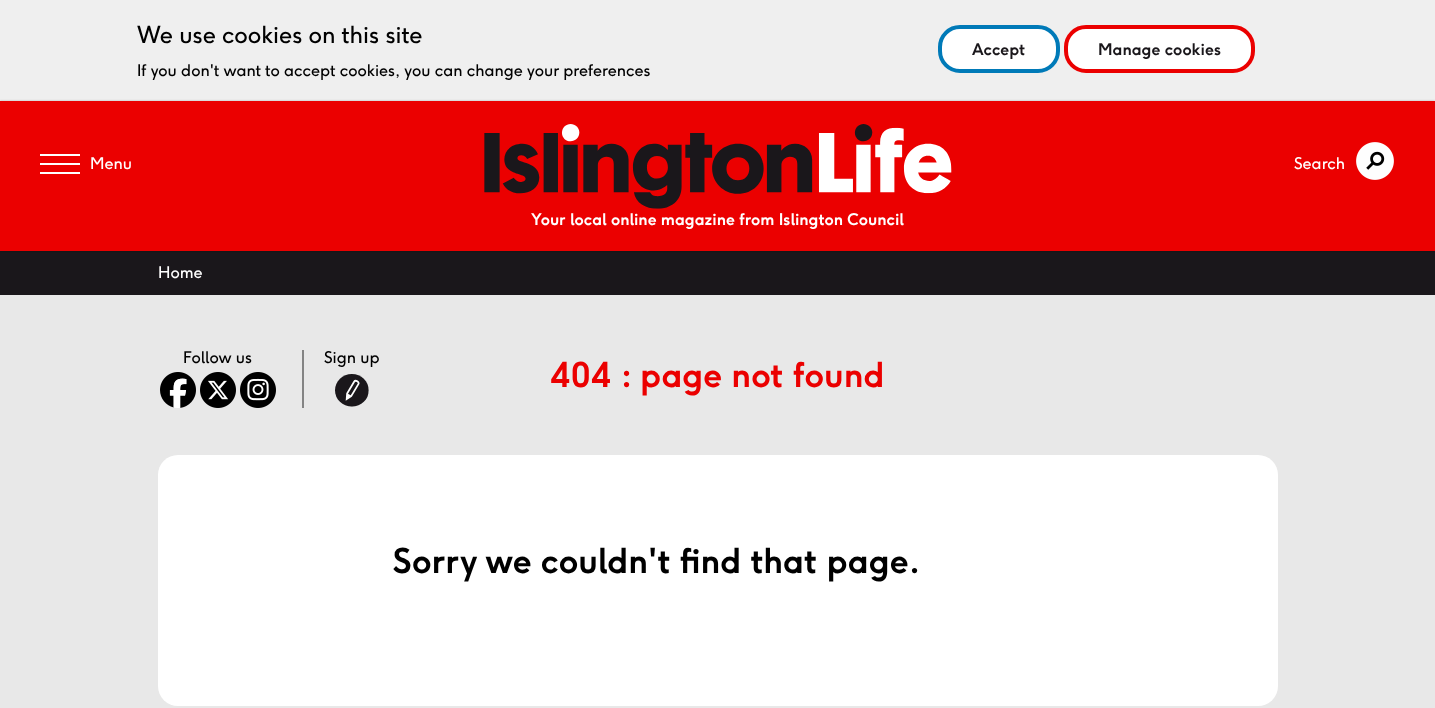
async function draw(canvas) {
  canvas.width = 1435
  canvas.height = 708
  const ctx = canvas.getContext('2d')
  ctx.miterLimit = 4
  ctx.fontKerning = 'normal'
  async function loadImage(src) {
    const img = new Image()
    img.src = src
    await img.decode()
    return img
  }

  ctx.fillStyle = '#e8e8e8'
  ctx.fillRect(0, 0, 1435, 708)
  ctx.fillStyle = '#efefef'
  ctx.fillRect(0, 0, 1435, 101)
  ctx.font = '23.25px "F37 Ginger"'
  ctx.fillStyle = '#000'
  ctx.fillText('We use cookies on this site', 137, 43)
  ctx.font = '16px "F37 Ginger"'
  ctx.fillText('If you don\'t want to accept cookies, you can change your preferences', 137, 76)
  ctx.fillStyle = '#fff'
  ctx.beginPath()
  ctx.roundRect(940, 27, 118, 44, 20)
  ctx.fill()
  ctx.strokeStyle = '#007ab8'
  ctx.lineWidth = 4
  ctx.stroke()
  ctx.font = 'bold 16px "F37 Ginger"'
  ctx.fillStyle = '#1a171b'
  ctx.fillText('Accept', 972, 55)
  ctx.fillStyle = '#fff'
  ctx.beginPath()
  ctx.roundRect(1066, 27, 187, 44, 20)
  ctx.fill()
  ctx.strokeStyle = '#eb0000'
  ctx.stroke()
  ctx.fillStyle = '#1a171b'
  ctx.fillText('Manage cookies', 1098, 55)
  ctx.fillRect(0, 251, 1435, 44)
  ctx.fillStyle = '#00000040'
  ctx.filter = 'blur(1px)'
  ctx.beginPath()
  ctx.rect(0, 101, 1435, 150)
  ctx.fill()
  ctx.filter = 'none'
  ctx.fillStyle = '#eb0000'
  ctx.fillRect(0, 101, 1435, 150)
  ctx.fillStyle = '#fff'
  ctx.beginPath()
  ctx.moveTo(40, 156)
  ctx.lineTo(80, 156)
  ctx.lineTo(80, 154)
  ctx.lineTo(40, 154)
  ctx.closePath()
  ctx.moveTo(40, 174)
  ctx.lineTo(80, 174)
  ctx.lineTo(80, 172)
  ctx.lineTo(40, 172)
  ctx.closePath()
  ctx.moveTo(40, 165)
  ctx.lineTo(80, 165)
  ctx.lineTo(80, 163)
  ctx.lineTo(40, 163)
  ctx.closePath()
  ctx.fill('evenodd')
  ctx.font = '16px "F37 Ginger"'
  ctx.fillText('Menu', 90, 169)
  ctx.drawImage(await loadImage('image0.png'), 484, 124, 468, 85)
  ctx.drawImage(await loadImage('image1.png'), 1356, 142, 38, 38)
  ctx.fillText('Search', 1294, 169)
  ctx.font = 'bold 16px "F37 Ginger"'
  ctx.fillText('Your local online magazine from Islington Council', 531, 225)
  ctx.font = '16px "F37 Ginger"'
  ctx.fillText('Home', 158, 278)
  ctx.fillStyle = '#000'
  ctx.fillText('Follow us', 183, 363)
  ctx.drawImage(await loadImage('image2.png'), 160, 372, 36, 36)
  ctx.drawImage(await loadImage('image3.png'), 200, 372, 36, 36)
  ctx.drawImage(await loadImage('image4.png'), 240, 372, 36, 36)
  ctx.fillStyle = '#848484'
  ctx.fillRect(302, 350, 2, 58)
  ctx.fillStyle = '#000'
  ctx.fillText('Sign up', 324, 363)
  ctx.drawImage(await loadImage('image5.png'), 335, 374, 34, 33)
  ctx.font = 'bold 34px "F37 Ginger"'
  ctx.fillStyle = '#eb0000'
  ctx.fillText('404 : page not found', 550, 387)
  ctx.fillStyle = '#fff'
  ctx.beginPath()
  ctx.roundRect(158, 455, 1120, 251, 20)
  ctx.fill()
  ctx.fillStyle = '#000'
  ctx.fillText('Sorry we couldn\'t find that page.', 393, 573)
}

draw(document.querySelector('canvas'))
